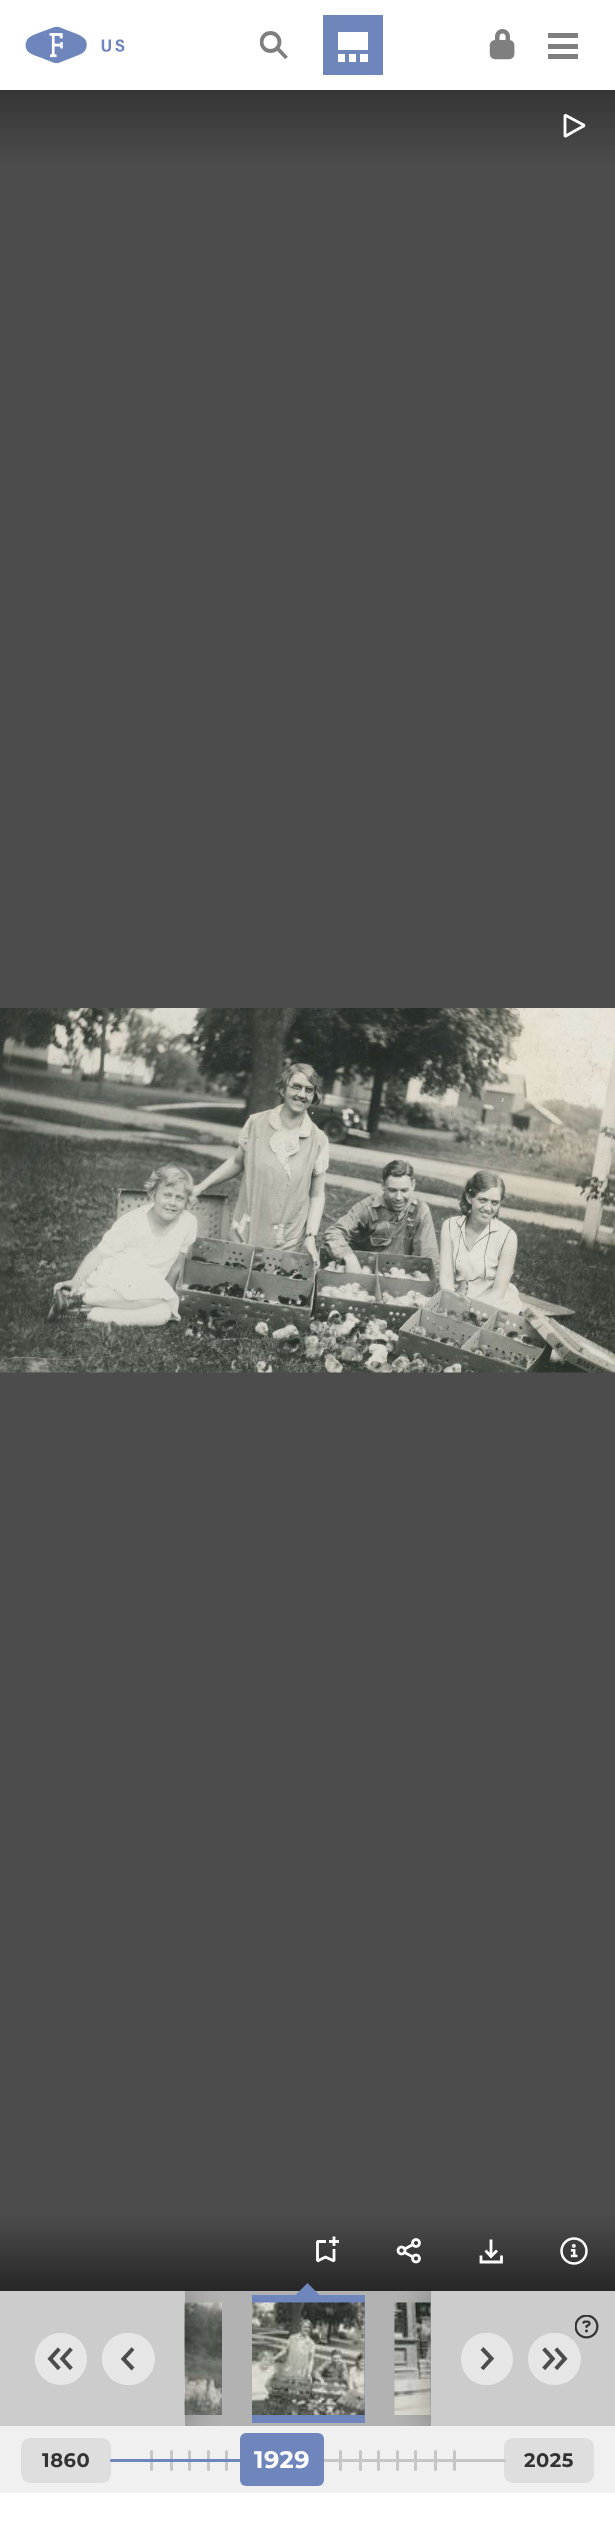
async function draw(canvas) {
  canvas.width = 615
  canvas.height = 2523
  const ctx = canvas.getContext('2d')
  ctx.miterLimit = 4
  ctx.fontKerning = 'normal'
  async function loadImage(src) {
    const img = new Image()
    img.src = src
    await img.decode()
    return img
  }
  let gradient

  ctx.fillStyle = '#fff'
  ctx.fillRect(0, 0, 615, 2523)
  ctx.drawImage(await loadImage('image0.png'), 25, 26, 100, 38)
  ctx.save()
  ctx.beginPath()
  ctx.rect(260, 26, 28, 39)
  ctx.clip()
  ctx.beginPath()
  ctx.arc(270.5, 42, 9, 0, 2 * Math.PI)
  ctx.strokeStyle = '#7f7f7f'
  ctx.lineWidth = 3.8
  ctx.stroke()
  ctx.restore()
  ctx.beginPath()
  ctx.moveTo(277.5, 48.5)
  ctx.lineTo(286.5, 58)
  ctx.strokeStyle = '#7f7f7f'
  ctx.lineWidth = 3.8
  ctx.stroke()
  ctx.fillStyle = '#6e86bc'
  ctx.fillRect(323, 15, 60, 60)
  ctx.fillStyle = '#fff'
  ctx.fillRect(338, 32, 30, 18)
  ctx.fillRect(338, 54, 7, 8)
  ctx.fillRect(349, 54, 7, 8)
  ctx.fillRect(360, 54, 8, 8)
  ctx.drawImage(await loadImage('image1.png'), 489, 29, 26, 31)
  ctx.fillStyle = '#7f7f7f'
  ctx.fillRect(548, 44, 30, 5)
  ctx.fillRect(548, 33, 30, 5)
  ctx.fillRect(548, 54, 30, 5)
  gradient = ctx.createLinearGradient(308, 90, 308, 165)
  gradient.addColorStop(0, '#353535')
  gradient.addColorStop(1, '#4c4c4c')
  ctx.fillStyle = gradient
  ctx.fillRect(0, 90, 615, 75)
  ctx.beginPath()
  ctx.moveTo(574.5, 131)
  ctx.lineTo(565, 136.5)
  ctx.lineTo(565, 115)
  ctx.lineTo(584.5, 125.5)
  ctx.closePath()
  ctx.strokeStyle = '#fff'
  ctx.lineWidth = 2.8
  ctx.lineJoin = 'bevel'
  ctx.stroke()
  gradient = ctx.createLinearGradient(308, 2216, 308, 2291)
  gradient.addColorStop(0, '#4c4c4c')
  gradient.addColorStop(1, '#262626')
  ctx.fillStyle = gradient
  ctx.fillRect(0, 2216, 615, 75)
  ctx.beginPath()
  ctx.moveTo(334, 2249)
  ctx.lineTo(334, 2261)
  ctx.lineTo(325.5, 2257)
  ctx.lineTo(317.5, 2261)
  ctx.lineTo(317.5, 2241.5)
  ctx.lineTo(326, 2241.5)
  ctx.stroke()
  ctx.beginPath()
  ctx.moveTo(334, 2236.5)
  ctx.lineTo(334, 2246)
  ctx.lineJoin = 'miter'
  ctx.stroke()
  ctx.fillStyle = '#ffffffed'
  ctx.fillRect(329, 2240, 10, 3)
  ctx.drawImage(await loadImage('image2.png'), 396, 2238, 25, 26)
  ctx.beginPath()
  ctx.moveTo(491, 2239.5)
  ctx.lineTo(491, 2256.5)
  ctx.moveTo(497, 2250.5)
  ctx.lineTo(491, 2256.5)
  ctx.lineTo(485.5, 2250.5)
  ctx.moveTo(481, 2255.5)
  ctx.lineTo(481, 2262)
  ctx.lineTo(501.5, 2262)
  ctx.lineTo(501.5, 2255.5)
  ctx.stroke()
  ctx.drawImage(await loadImage('image3.png'), 560, 2237, 28, 28)
  ctx.fillStyle = '#4c4c4c'
  ctx.fillRect(0, 165, 615, 2051)
  ctx.drawImage(await loadImage('image4.png'), 0, 1008, 615, 365)
  ctx.fillStyle = '#ccc'
  ctx.fillRect(0, 2291, 615, 135)
  ctx.fillStyle = '#b2b2b2'
  ctx.fillRect(185, 2291, 246, 135)
  ctx.drawImage(await loadImage('image6.png'), 184, 2302, 38, 113)
  ctx.fillStyle = '#f0f0f0'
  ctx.fillRect(0, 2426, 615, 67)
  ctx.fillStyle = '#dedede'
  ctx.beginPath()
  ctx.roundRect(21, 2438, 90, 45, 9)
  ctx.fill()
  ctx.fillStyle = '#c6c6c6'
  ctx.beginPath()
  ctx.roundRect(150, 2450, 3, 21, 1.5)
  ctx.fill()
  ctx.beginPath()
  ctx.roundRect(170, 2450, 3, 21, 1.5)
  ctx.fill()
  ctx.beginPath()
  ctx.roundRect(188, 2450, 3, 21, 1.5)
  ctx.fill()
  ctx.beginPath()
  ctx.roundRect(207, 2450, 3, 21, 1.5)
  ctx.fill()
  ctx.beginPath()
  ctx.roundRect(225, 2450, 3, 21, 1.5)
  ctx.fill()
  ctx.beginPath()
  ctx.roundRect(339, 2450, 3, 21, 1.5)
  ctx.fill()
  ctx.beginPath()
  ctx.roundRect(359, 2450, 3, 21, 1.5)
  ctx.fill()
  ctx.beginPath()
  ctx.roundRect(377, 2450, 3, 21, 1.5)
  ctx.fill()
  ctx.beginPath()
  ctx.roundRect(396, 2450, 3, 21, 1.5)
  ctx.fill()
  ctx.beginPath()
  ctx.roundRect(414, 2450, 3, 21, 1.5)
  ctx.fill()
  ctx.beginPath()
  ctx.roundRect(434, 2450, 3, 21, 1.5)
  ctx.fill()
  ctx.beginPath()
  ctx.roundRect(453, 2450, 3, 21, 1.5)
  ctx.fill()
  ctx.fillStyle = '#dedede'
  ctx.beginPath()
  ctx.roundRect(504, 2438, 90, 45, 9)
  ctx.fill()
  ctx.fillStyle = '#c6c6c6'
  ctx.beginPath()
  ctx.roundRect(110, 2459, 396, 3, 1.5)
  ctx.fill()
  ctx.fillStyle = '#6e86bc'
  ctx.beginPath()
  ctx.roundRect(110, 2459, 175, 3, 1.5)
  ctx.fill()
  ctx.beginPath()
  ctx.roundRect(240, 2433, 84, 53, 6)
  ctx.fill()
  ctx.save()
  ctx.beginPath()
  ctx.rect(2, 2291, 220, 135)
  ctx.clip()
  ctx.beginPath()
  ctx.moveTo(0, 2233)
  ctx.lineTo(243, 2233)
  ctx.lineTo(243, 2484)
  ctx.lineTo(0, 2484)
  ctx.closePath()
  ctx.moveTo(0, 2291)
  ctx.lineTo(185, 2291)
  ctx.lineTo(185, 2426)
  ctx.lineTo(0, 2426)
  ctx.closePath()
  ctx.clip('evenodd')
  ctx.fillStyle = '#00000066'
  ctx.filter = 'blur(19px)'
  ctx.beginPath()
  ctx.rect(0, 2291, 185, 135)
  ctx.fill()
  ctx.filter = 'none'
  ctx.restore()
  ctx.fillStyle = '#e6e6e6'
  ctx.beginPath()
  ctx.arc(61, 2359, 26, 0, 2 * Math.PI)
  ctx.fill()
  ctx.drawImage(await loadImage('image5.png'), 35, 2333, 51, 51)
  ctx.beginPath()
  ctx.roundRect(102, 2333, 53, 52, 26)
  ctx.fill()
  ctx.beginPath()
  ctx.moveTo(128, 2333)
  ctx.bezierCurveTo(102, 2333, 93, 2366, 114, 2380)
  ctx.bezierCurveTo(117, 2383, 123, 2385, 128, 2385)
  ctx.bezierCurveTo(133, 2385, 134, 2385, 138, 2383)
  ctx.bezierCurveTo(164, 2372, 157, 2333, 129, 2333)
  ctx.closePath()
  ctx.fill()
  ctx.beginPath()
  ctx.moveTo(133, 2348.5)
  ctx.lineTo(123.5, 2359)
  ctx.lineTo(133, 2369)
  ctx.strokeStyle = '#4c4c4c'
  ctx.lineWidth = 4
  ctx.stroke()
  ctx.fillStyle = '#6e86bc'
  ctx.beginPath()
  ctx.moveTo(319.5, 2295)
  ctx.lineTo(295.5, 2295)
  ctx.lineTo(307.5, 2283)
  ctx.closePath()
  ctx.fill()
  ctx.fillRect(252, 2295, 113, 128)
  ctx.drawImage(await loadImage('image7.png'), 252, 2302, 113, 113)
  ctx.drawImage(await loadImage('image8.png'), 394, 2302, 37, 113)
  ctx.save()
  ctx.beginPath()
  ctx.rect(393, 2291, 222, 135)
  ctx.clip()
  ctx.beginPath()
  ctx.moveTo(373, 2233)
  ctx.lineTo(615, 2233)
  ctx.lineTo(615, 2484)
  ctx.lineTo(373, 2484)
  ctx.closePath()
  ctx.moveTo(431, 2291)
  ctx.lineTo(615, 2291)
  ctx.lineTo(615, 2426)
  ctx.lineTo(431, 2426)
  ctx.closePath()
  ctx.clip('evenodd')
  ctx.fillStyle = '#00000066'
  ctx.filter = 'blur(19px)'
  ctx.beginPath()
  ctx.rect(431, 2291, 184, 135)
  ctx.fill()
  ctx.filter = 'none'
  ctx.restore()
  ctx.fillStyle = '#e6e6e6'
  ctx.beginPath()
  ctx.arc(487, 2359, 26, 0, 2 * Math.PI)
  ctx.fill()
  ctx.beginPath()
  ctx.moveTo(487, 2385)
  ctx.bezierCurveTo(492, 2385, 497, 2383, 501, 2380)
  ctx.bezierCurveTo(522, 2366, 513, 2333, 487, 2333)
  ctx.bezierCurveTo(453, 2333, 453, 2385, 487, 2385)
  ctx.closePath()
  ctx.fill()
  ctx.beginPath()
  ctx.moveTo(482, 2369)
  ctx.lineTo(491.5, 2358.5)
  ctx.lineTo(482, 2348.5)
  ctx.stroke()
  ctx.beginPath()
  ctx.roundRect(528, 2333, 53, 52, 26)
  ctx.fill()
  ctx.drawImage(await loadImage('image9.png'), 529, 2333, 41, 37)
  ctx.drawImage(await loadImage('image10.png'), 575, 2315, 24, 24)
  ctx.letterSpacing = '0.5px'
  ctx.font = 'bold 19.5px Montserrat'
  ctx.fillStyle = '#333'
  ctx.fillText('1860', 42, 2467)
  ctx.font = 'bold 24px Montserrat'
  ctx.fillStyle = '#fefefe'
  ctx.fillText('1929', 254, 2468)
  ctx.font = 'bold 19.5px Montserrat'
  ctx.fillStyle = '#333'
  ctx.fillText('2025', 524, 2467)
}

draw(document.querySelector('canvas'))
